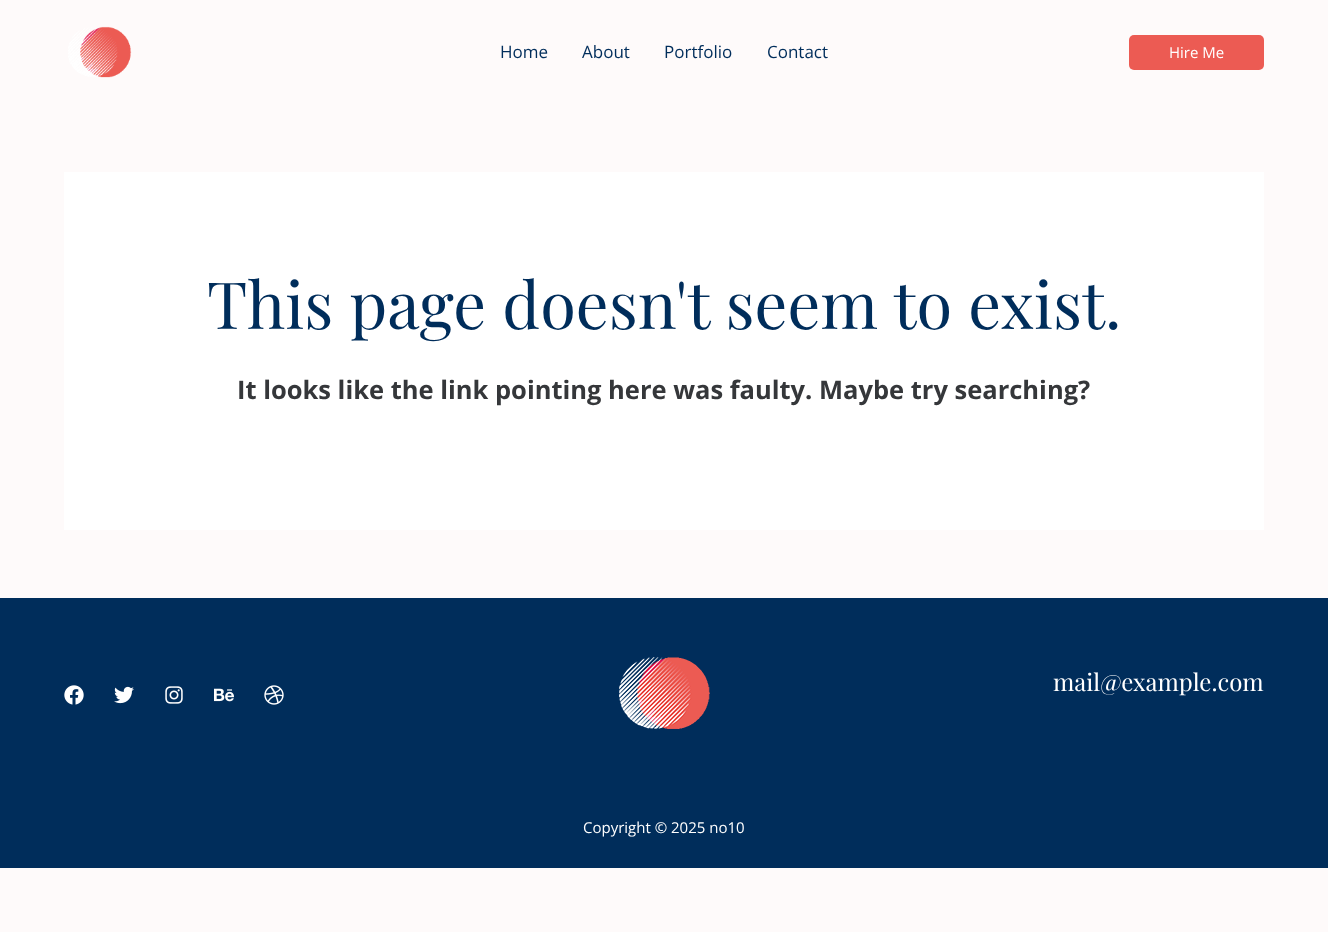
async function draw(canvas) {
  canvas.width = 1328
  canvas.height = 932
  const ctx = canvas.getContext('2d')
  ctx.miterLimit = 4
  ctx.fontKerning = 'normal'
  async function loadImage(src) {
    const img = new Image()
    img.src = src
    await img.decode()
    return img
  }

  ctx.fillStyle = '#fefafa'
  ctx.fillRect(0, 0, 1328, 932)
  ctx.drawImage(await loadImage('image0.png'), 68, 26, 64, 52)
  ctx.font = '17px Open Sans'
  ctx.fillStyle = '#002d5b'
  ctx.fillText('Home', 500, 58)
  ctx.fillText('About', 582, 58)
  ctx.fillText('Portfolio', 664, 58)
  ctx.fillText('Contact', 767, 58)
  ctx.fillStyle = '#ec5b53'
  ctx.beginPath()
  ctx.roundRect(1129, 35, 135, 35, 5)
  ctx.fill()
  ctx.font = '15px Open Sans'
  ctx.fillStyle = '#fff'
  ctx.fillText('Hire Me', 1169, 58)
  ctx.fillRect(64, 172, 1200, 358)
  ctx.font = '65px Playfair Display'
  ctx.fillStyle = '#002d5b'
  ctx.fillText('This page doesn\'t seem to exist.', 207, 329)
  ctx.font = 'bold 25.5px Open Sans'
  ctx.fillStyle = '#35373a'
  ctx.fillText('It looks like the link pointing here was faulty. Maybe try searching?', 237, 399)
  ctx.fillStyle = '#002d5b'
  ctx.fillRect(0, 598, 1328, 270)
  ctx.drawImage(await loadImage('image1.png'), 64, 685, 20, 20)
  ctx.drawImage(await loadImage('image2.png'), 114, 686, 20, 18)
  ctx.drawImage(await loadImage('image3.png'), 165, 686, 18, 18)
  ctx.drawImage(await loadImage('image4.png'), 214, 688, 20, 14)
  ctx.drawImage(await loadImage('image5.png'), 264, 685, 20, 20)
  ctx.drawImage(await loadImage('image6.png'), 619, 657, 91, 72)
  ctx.font = '24px Playfair Display'
  ctx.fillStyle = '#fff'
  ctx.fillText('mail@example.com', 1053, 691)
  ctx.font = '15px Open Sans'
  ctx.fillText('Copyright © 2025 no10', 583, 833)
}

draw(document.querySelector('canvas'))
